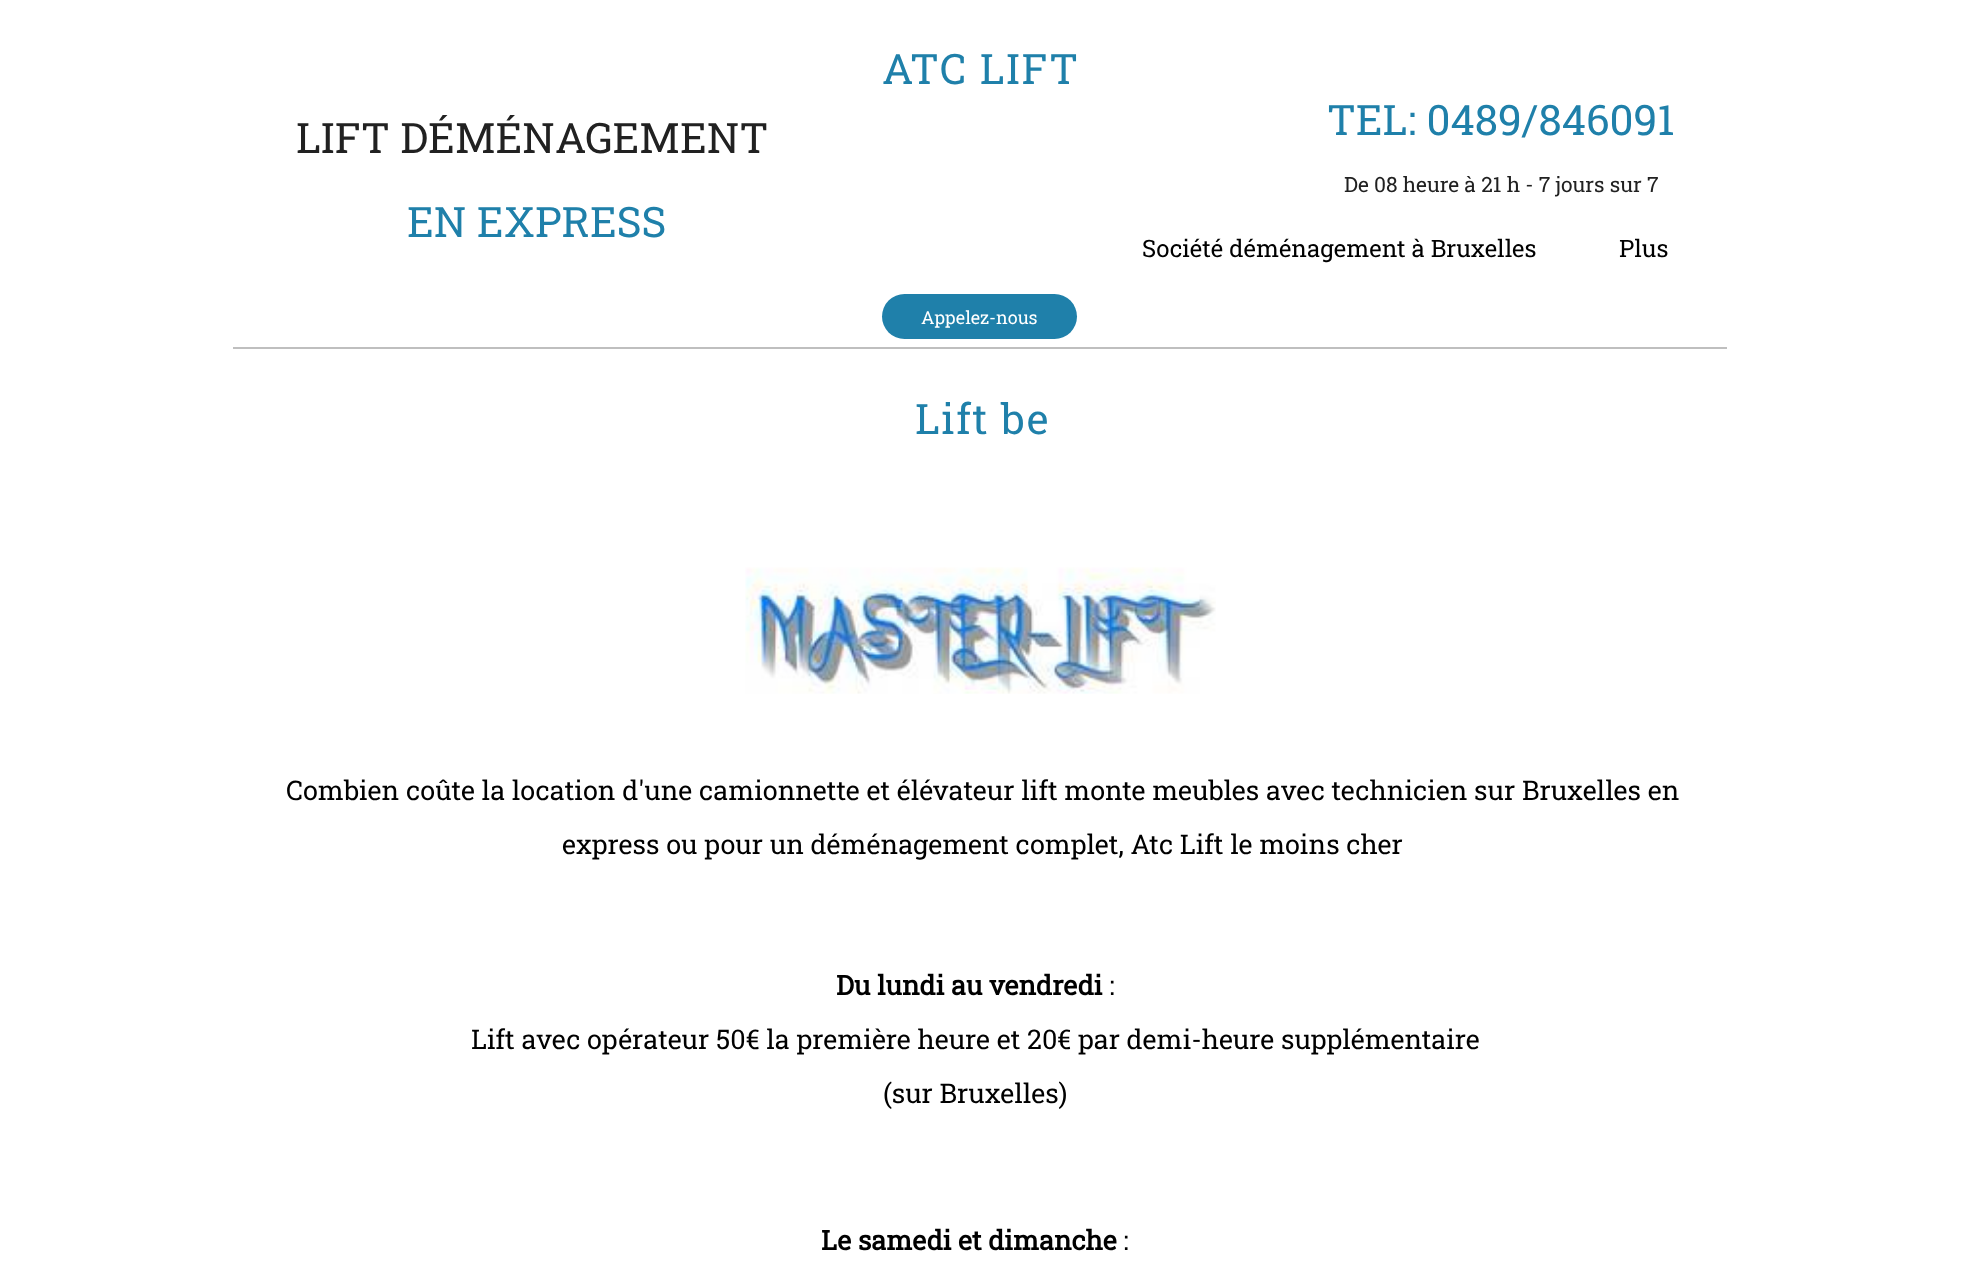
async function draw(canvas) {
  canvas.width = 1964
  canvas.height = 1270
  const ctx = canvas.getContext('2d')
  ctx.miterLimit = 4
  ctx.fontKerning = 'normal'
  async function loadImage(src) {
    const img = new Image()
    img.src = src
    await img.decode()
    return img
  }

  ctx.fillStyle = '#fff'
  ctx.fillRect(0, 0, 1964, 1270)
  ctx.letterSpacing = '1.5px'
  ctx.font = '42px Roboto Slab'
  ctx.fillStyle = '#1f80aa'
  ctx.fillText('ATC LIFT', 882, 84)
  ctx.letterSpacing = '0px'
  ctx.fillStyle = '#212121'
  ctx.fillText('LIFT DÉMÉNAGEMENT', 296, 153)
  ctx.fillStyle = '#1f80aa'
  ctx.fillText('EN EXPRESS', 407, 237)
  ctx.fillText('TEL: 0489/846091', 1327, 135)
  ctx.font = '21px Roboto Slab'
  ctx.fillStyle = '#212121'
  ctx.fillText('De 08 heure à 21 h - 7 jours sur 7', 1344, 192)
  ctx.fillStyle = '#1f80aa'
  ctx.beginPath()
  ctx.roundRect(882, 294, 195, 45, 22.5)
  ctx.fill()
  ctx.font = '18px Roboto Slab'
  ctx.fillStyle = '#fff'
  ctx.fillText('Appelez-nous', 921, 324)
  ctx.fillStyle = '#bfbfbf'
  ctx.fillRect(233, 347, 1494, 2)
  ctx.font = '24px Roboto Slab'
  ctx.fillStyle = '#000'
  ctx.fillText('Société déménagement à Bruxelles', 1142, 257)
  ctx.fillText('Plus', 1619, 257)
  ctx.letterSpacing = '1.5px'
  ctx.font = '42px Roboto Slab'
  ctx.fillStyle = '#1f80aa'
  ctx.fillText('Lift be', 915, 434)
  ctx.drawImage(await loadImage('image0.png'), 745, 567, 471, 127)
  ctx.letterSpacing = '0px'
  ctx.font = '27px Roboto Slab'
  ctx.fillStyle = '#000'
  ctx.fillText('Combien coûte la location d\'une camionnette et élévateur lift monte meubles avec technicien sur Bruxelles en', 286, 800)
  ctx.fillText('express ou pour un déménagement complet, Atc Lift le moins cher', 562, 854)
  ctx.font = 'bold 27px Roboto Slab'
  ctx.fillText('Du lundi au vendredi', 836, 995)
  ctx.font = '27px Roboto Slab'
  ctx.fillText(':', 1109, 995)
  ctx.fillText('Lift avec opérateur 50€ la première heure et 20€ par demi-heure supplémentaire', 471, 1049)
  ctx.fillText('(sur Bruxelles)', 883, 1103)
  ctx.font = 'bold 27px Roboto Slab'
  ctx.fillText('Le samedi et dimanche', 821, 1250)
  ctx.font = '27px Roboto Slab'
  ctx.fillText(':', 1123, 1250)
}

draw(document.querySelector('canvas'))
